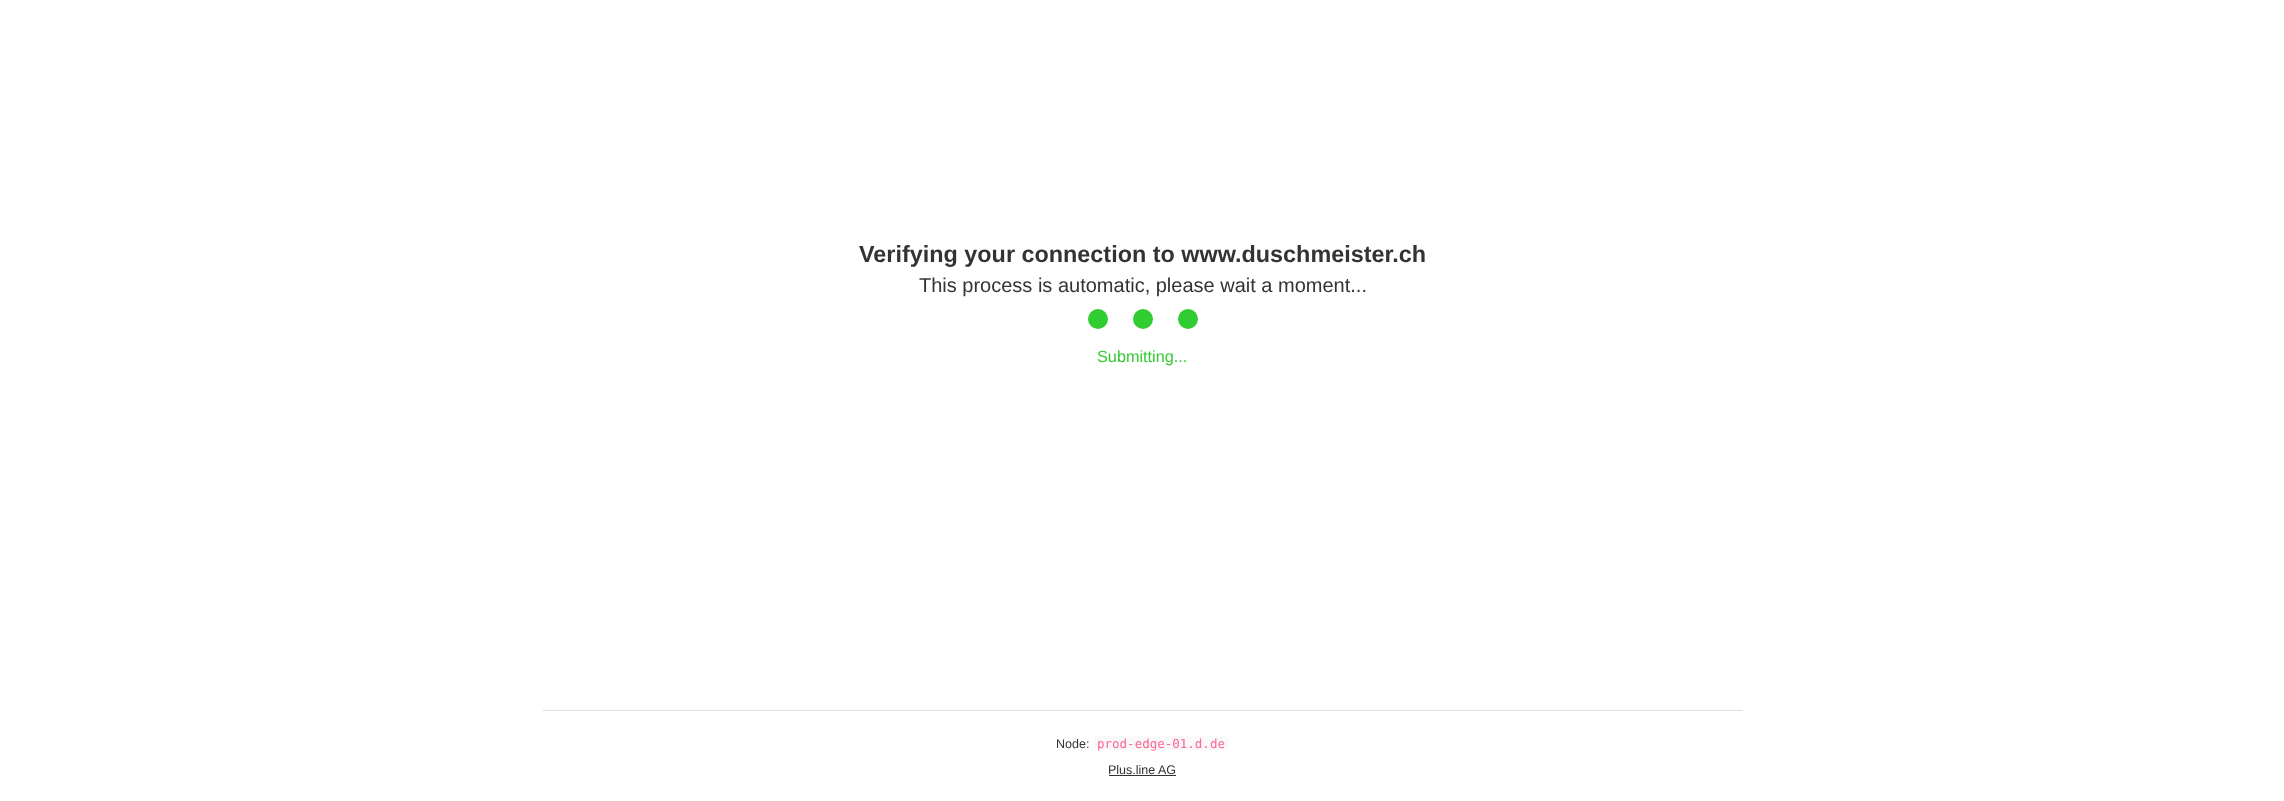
async function draw(canvas) {
  canvas.width = 2284
  canvas.height = 801
  const ctx = canvas.getContext('2d')
  ctx.miterLimit = 4
  ctx.fontKerning = 'normal'

  ctx.fillStyle = '#fff'
  ctx.fillRect(0, 0, 2284, 801)
  ctx.font = 'bold 23.4px Liberation Sans'
  ctx.fillStyle = '#333'
  ctx.fillText('Verifying your connection to www.duschmeister.ch', 859, 262)
  ctx.font = '20px Liberation Sans'
  ctx.fillText('This process is automatic, please wait a moment...', 919, 292)
  ctx.fillStyle = '#31cc31'
  ctx.beginPath()
  ctx.arc(1098, 319, 10, 0, 2 * Math.PI)
  ctx.fill()
  ctx.beginPath()
  ctx.arc(1143, 319, 10, 0, 2 * Math.PI)
  ctx.fill()
  ctx.beginPath()
  ctx.arc(1188, 319, 10, 0, 2 * Math.PI)
  ctx.fill()
  ctx.font = '16.25px Liberation Sans'
  ctx.fillText('Submitting...', 1097, 362)
  ctx.fillStyle = '#dfdfdf'
  ctx.fillRect(543, 710, 1200, 1)
  ctx.font = '12.5px Liberation Sans'
  ctx.fillStyle = '#333'
  ctx.fillText('Node:', 1056, 748)
  ctx.fillStyle = '#f9f9f9'
  ctx.beginPath()
  ctx.roundRect(1094, 736, 135, 14, 5)
  ctx.fill()
  ctx.font = '12.5px DejaVu Sans Mono'
  ctx.fillStyle = '#ff6590'
  ctx.fillText('prod-edge-01.d.de', 1097, 748)
  ctx.font = '12.5px Liberation Sans'
  ctx.fillStyle = '#333'
  ctx.fillText('Plus.line AG', 1108, 774)
  ctx.fillRect(1109, 775, 67, 1)
}

draw(document.querySelector('canvas'))
